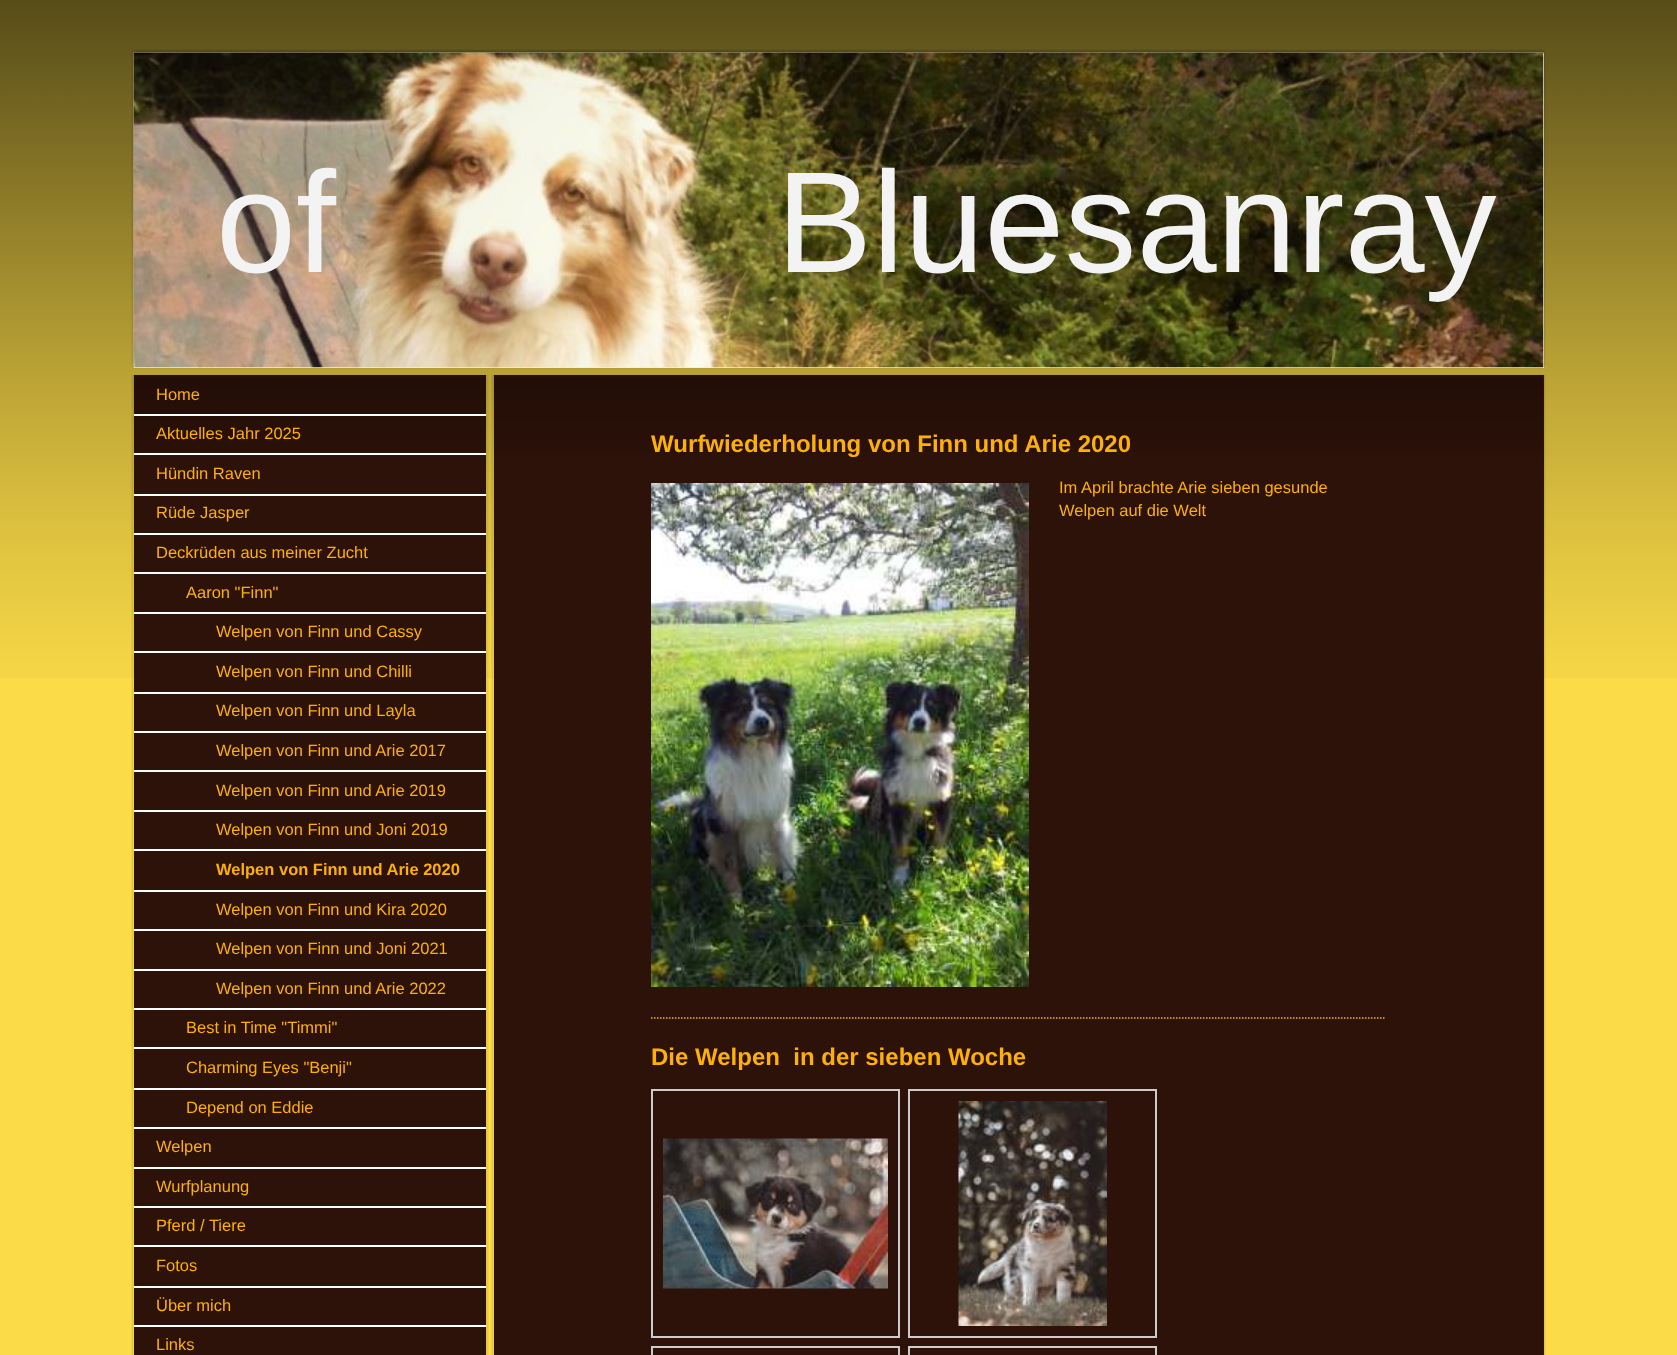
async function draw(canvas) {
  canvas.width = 1677
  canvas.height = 1355
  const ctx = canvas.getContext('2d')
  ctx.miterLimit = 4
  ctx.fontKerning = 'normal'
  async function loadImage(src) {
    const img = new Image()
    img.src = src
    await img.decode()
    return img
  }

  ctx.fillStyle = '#fbdb48'
  ctx.fillRect(0, 0, 1677, 1355)
  ctx.drawImage(await loadImage('image0.png'), 0, 0, 1677, 678)
  ctx.drawImage(await loadImage('image1.png'), 131, 49, 1415, 320)
  ctx.fillStyle = '#eee'
  ctx.fillRect(134, 53, 1410, 315)
  ctx.drawImage(await loadImage('image2.png'), 133, 52, 1411, 316)
  ctx.font = '144px Liberation Sans'
  ctx.fillStyle = '#f3f3f3'
  ctx.fillText('of           Bluesanray', 216, 272)
  ctx.fillStyle = '#b49d34'
  ctx.fillRect(134, 374, 351, 1)
  ctx.drawImage(await loadImage('image3.png'), 131, 375, 358, 980)
  ctx.fillStyle = '#2c1209'
  ctx.fillRect(134, 375, 352, 980)
  ctx.drawImage(await loadImage('image4.png'), 133, 375, 353, 77)
  ctx.fillStyle = '#fff'
  ctx.fillRect(134, 414, 352, 2)
  ctx.font = '16.5px Liberation Sans'
  ctx.fillStyle = '#feb006'
  ctx.fillText('Home', 156, 400)
  ctx.fillStyle = '#fff'
  ctx.fillRect(134, 453, 352, 2)
  ctx.fillStyle = '#feb006'
  ctx.fillText('Aktuelles Jahr 2025', 156, 439)
  ctx.fillStyle = '#fff'
  ctx.fillRect(134, 494, 352, 2)
  ctx.fillStyle = '#feb006'
  ctx.fillText('Hündin Raven', 156, 479)
  ctx.fillStyle = '#fff'
  ctx.fillRect(134, 533, 352, 2)
  ctx.fillStyle = '#feb006'
  ctx.fillText('Rüde Jasper', 156, 518)
  ctx.fillStyle = '#fff'
  ctx.fillRect(134, 572, 352, 2)
  ctx.fillStyle = '#feb006'
  ctx.fillText('Deckrüden aus meiner Zucht', 156, 558)
  ctx.fillStyle = '#fff'
  ctx.fillRect(134, 612, 352, 2)
  ctx.fillStyle = '#feb006'
  ctx.fillText('Aaron "Finn"', 186, 598)
  ctx.fillStyle = '#fff'
  ctx.fillRect(134, 651, 352, 2)
  ctx.fillStyle = '#feb006'
  ctx.fillText('Welpen von Finn und Cassy', 216, 637)
  ctx.fillStyle = '#fff'
  ctx.fillRect(134, 692, 352, 2)
  ctx.fillStyle = '#feb006'
  ctx.fillText('Welpen von Finn und Chilli', 216, 677)
  ctx.fillStyle = '#fff'
  ctx.fillRect(134, 731, 352, 2)
  ctx.fillStyle = '#feb006'
  ctx.fillText('Welpen von Finn und Layla', 216, 716)
  ctx.fillStyle = '#fff'
  ctx.fillRect(134, 770, 352, 2)
  ctx.fillStyle = '#feb006'
  ctx.fillText('Welpen von Finn und Arie 2017', 216, 756)
  ctx.fillStyle = '#fff'
  ctx.fillRect(134, 810, 352, 2)
  ctx.fillStyle = '#feb006'
  ctx.fillText('Welpen von Finn und Arie 2019', 216, 796)
  ctx.fillStyle = '#fff'
  ctx.fillRect(134, 849, 352, 2)
  ctx.fillStyle = '#feb006'
  ctx.fillText('Welpen von Finn und Joni 2019', 216, 835)
  ctx.fillStyle = '#fff'
  ctx.fillRect(134, 890, 352, 2)
  ctx.font = 'bold 16.5px Liberation Sans'
  ctx.fillStyle = '#feb006'
  ctx.fillText('Welpen von Finn und Arie 2020', 216, 875)
  ctx.fillStyle = '#fff'
  ctx.fillRect(134, 929, 352, 2)
  ctx.font = '16.5px Liberation Sans'
  ctx.fillStyle = '#feb006'
  ctx.fillText('Welpen von Finn und Kira 2020', 216, 915)
  ctx.fillStyle = '#fff'
  ctx.fillRect(134, 969, 352, 2)
  ctx.fillStyle = '#feb006'
  ctx.fillText('Welpen von Finn und Joni 2021', 216, 954)
  ctx.fillStyle = '#fff'
  ctx.fillRect(134, 1008, 352, 2)
  ctx.fillStyle = '#feb006'
  ctx.fillText('Welpen von Finn und Arie 2022', 216, 994)
  ctx.fillStyle = '#fff'
  ctx.fillRect(134, 1047, 352, 2)
  ctx.fillStyle = '#feb006'
  ctx.fillText('Best in Time "Timmi"', 186, 1033)
  ctx.fillStyle = '#fff'
  ctx.fillRect(134, 1088, 352, 2)
  ctx.fillStyle = '#feb006'
  ctx.fillText('Charming Eyes "Benji"', 186, 1073)
  ctx.fillStyle = '#fff'
  ctx.fillRect(134, 1127, 352, 2)
  ctx.fillStyle = '#feb006'
  ctx.fillText('Depend on Eddie', 186, 1113)
  ctx.fillStyle = '#fff'
  ctx.fillRect(134, 1167, 352, 2)
  ctx.fillStyle = '#feb006'
  ctx.fillText('Welpen', 156, 1152)
  ctx.fillStyle = '#fff'
  ctx.fillRect(134, 1206, 352, 2)
  ctx.fillStyle = '#feb006'
  ctx.fillText('Wurfplanung', 156, 1192)
  ctx.fillStyle = '#fff'
  ctx.fillRect(134, 1245, 352, 2)
  ctx.fillStyle = '#feb006'
  ctx.fillText('Pferd / Tiere', 156, 1231)
  ctx.fillStyle = '#fff'
  ctx.fillRect(134, 1286, 352, 2)
  ctx.fillStyle = '#feb006'
  ctx.fillText('Fotos', 156, 1271)
  ctx.fillStyle = '#fff'
  ctx.fillRect(134, 1325, 352, 2)
  ctx.fillStyle = '#feb006'
  ctx.fillText('Über mich', 156, 1311)
  ctx.fillText('Links', 156, 1350)
  ctx.fillStyle = '#b49d34'
  ctx.fillRect(494, 374, 1049, 1)
  ctx.drawImage(await loadImage('image5.png'), 491, 375, 1055, 980)
  ctx.fillStyle = '#2c1209'
  ctx.fillRect(494, 375, 1050, 980)
  ctx.drawImage(await loadImage('image6.png'), 493, 375, 1051, 77)
  ctx.font = 'bold 24px Liberation Sans'
  ctx.fillStyle = '#feb006'
  ctx.fillText('Wurfwiederholung von Finn und Arie 2020', 651, 452)
  ctx.drawImage(await loadImage('image7.png'), 651, 483, 378, 504)
  ctx.font = '16.5px Liberation Sans'
  ctx.fillText('Im April brachte Arie sieben gesunde', 1059, 493)
  ctx.fillText('Welpen auf die Welt', 1059, 516)
  ctx.beginPath()
  ctx.moveTo(651, 1018)
  ctx.lineTo(1386, 1018)
  ctx.strokeStyle = '#feb006'
  ctx.lineWidth = 1.5
  ctx.setLineDash([1.5, 1.5])
  ctx.stroke()
  ctx.font = 'bold 24px Liberation Sans'
  ctx.fillText('Die Welpen  in der sieben Woche', 651, 1065)
  ctx.strokeStyle = '#ccc'
  ctx.lineWidth = 2
  ctx.setLineDash([])
  ctx.strokeRect(652, 1090, 247, 247)
  ctx.drawImage(await loadImage('image8.png'), 663, 1138, 225, 151)
  ctx.strokeRect(909, 1090, 247, 247)
  ctx.drawImage(await loadImage('image9.png'), 958, 1101, 149, 225)
  ctx.strokeRect(652, 1347, 247, 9)
  ctx.strokeRect(909, 1347, 247, 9)
}

draw(document.querySelector('canvas'))
